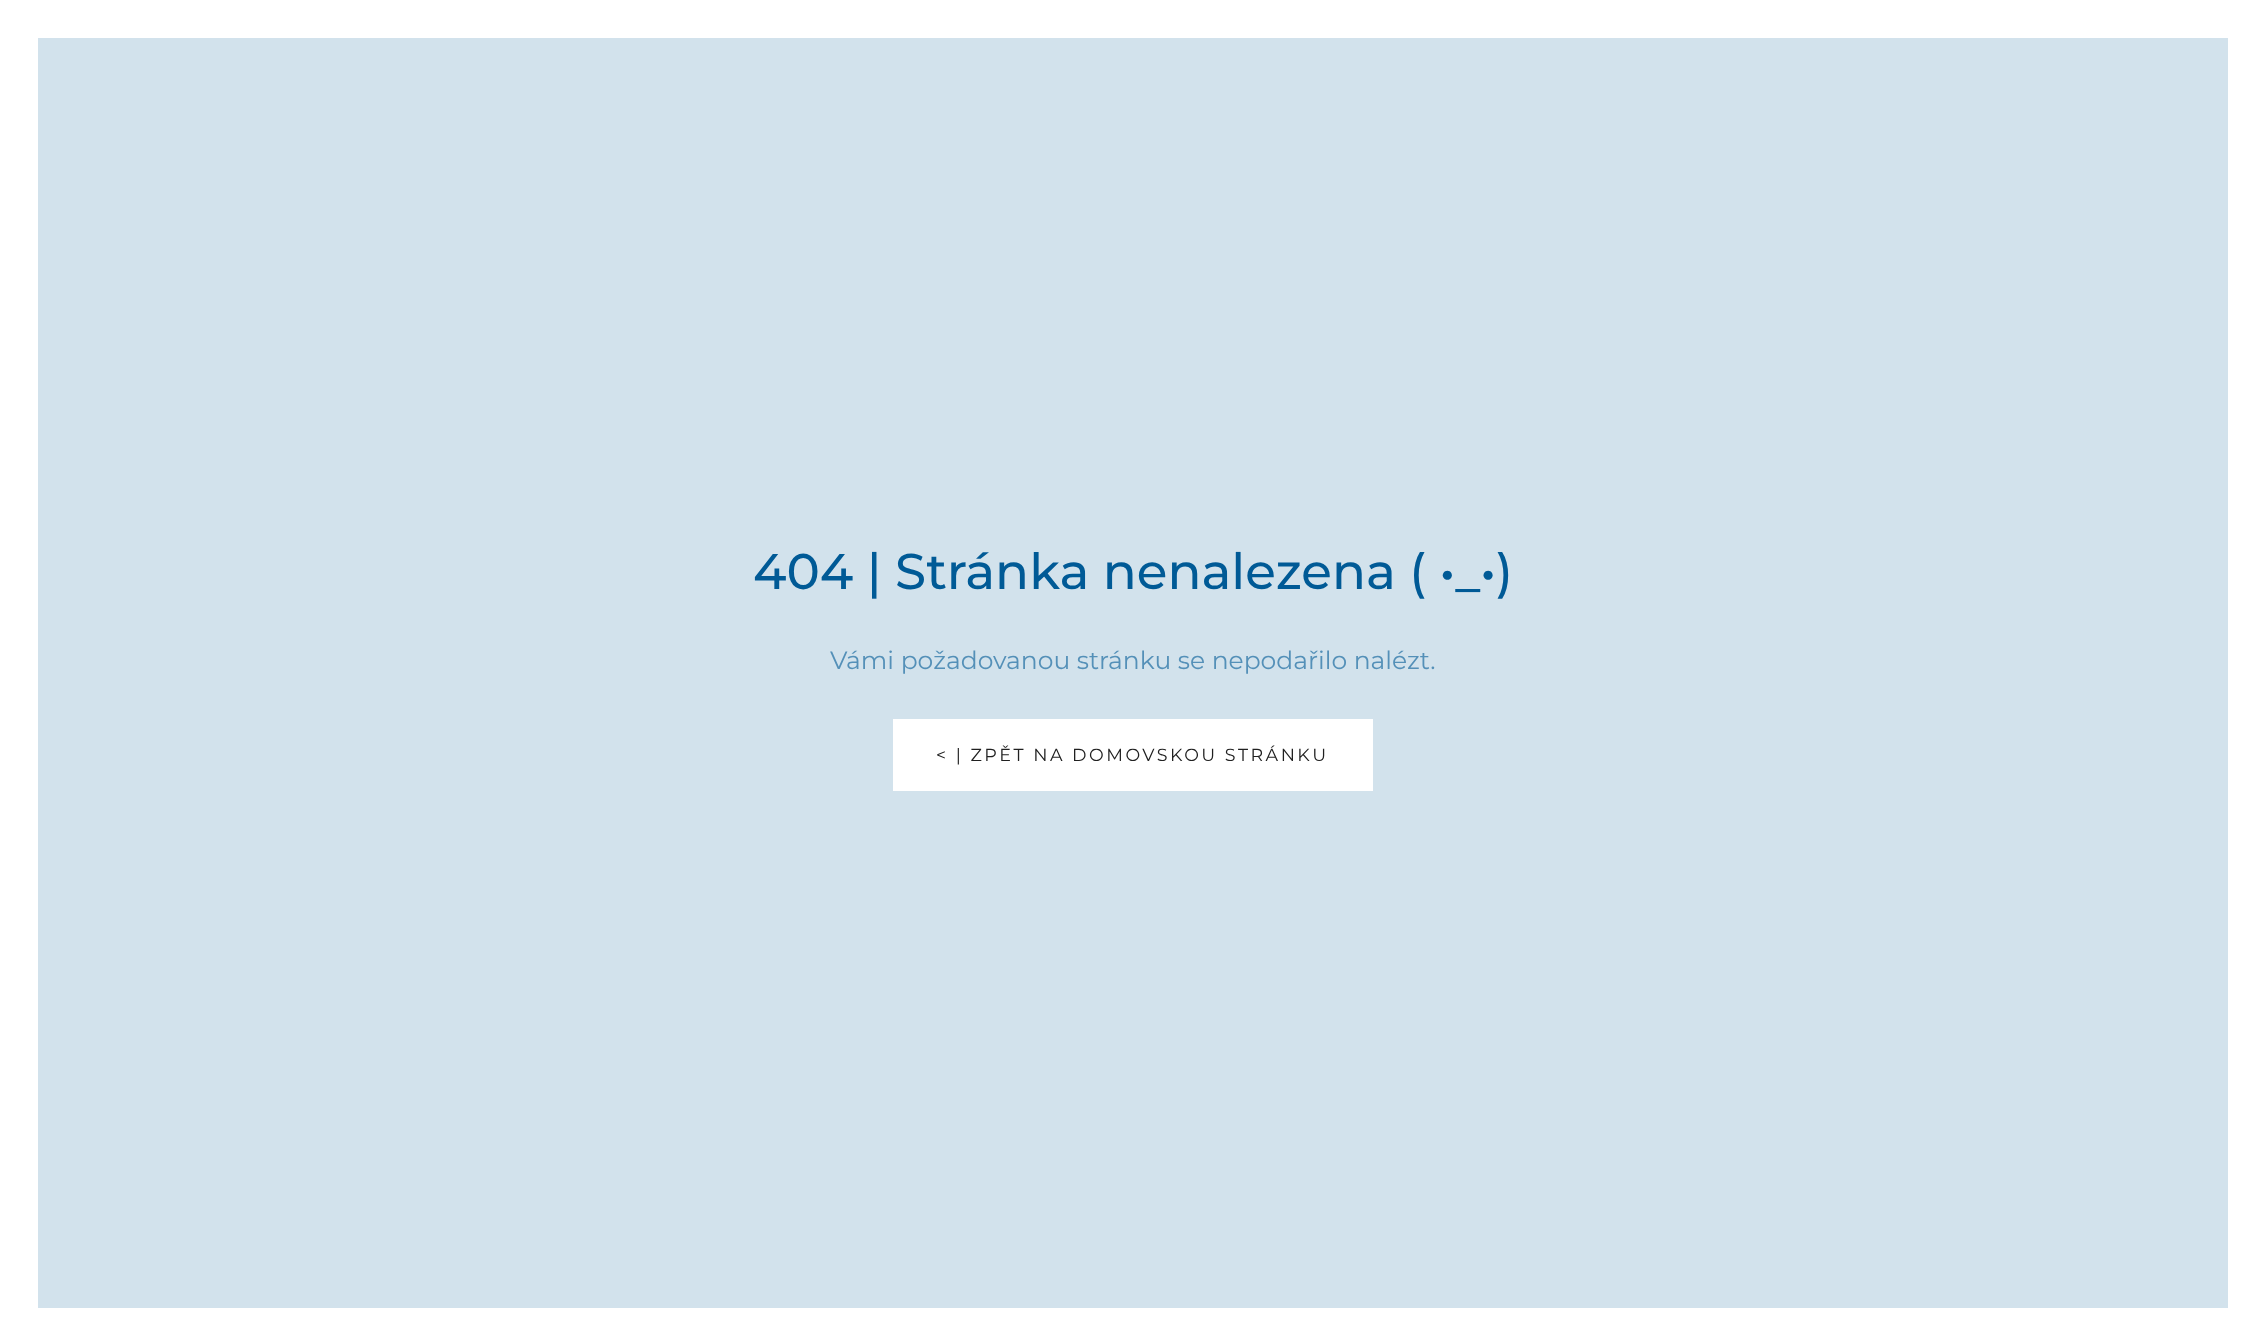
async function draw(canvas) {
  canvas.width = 2264
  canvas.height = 1344
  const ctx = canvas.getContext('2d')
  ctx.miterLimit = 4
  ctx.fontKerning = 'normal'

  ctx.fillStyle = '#fff'
  ctx.fillRect(0, 0, 2264, 1344)
  ctx.fillStyle = '#d2e2ec'
  ctx.fillRect(38, 38, 2190, 1270)
  ctx.font = '500 50px Montserrat'
  ctx.fillStyle = '#005a96'
  ctx.fillText('404 | Stránka nenalezena ( •_•)', 753, 589)
  ctx.font = '25px Montserrat'
  ctx.fillStyle = '#5490b8'
  ctx.fillText('Vámi požadovanou stránku se nepodařilo nalézt.', 830, 669)
  ctx.fillStyle = '#fff'
  ctx.fillRect(893, 719, 480, 72)
  ctx.letterSpacing = '2.5px'
  ctx.font = '17.5px Montserrat'
  ctx.fillStyle = '#202020'
  ctx.fillText('< | ZPĚT NA DOMOVSKOU STRÁNKU', 936, 761)
}

draw(document.querySelector('canvas'))
